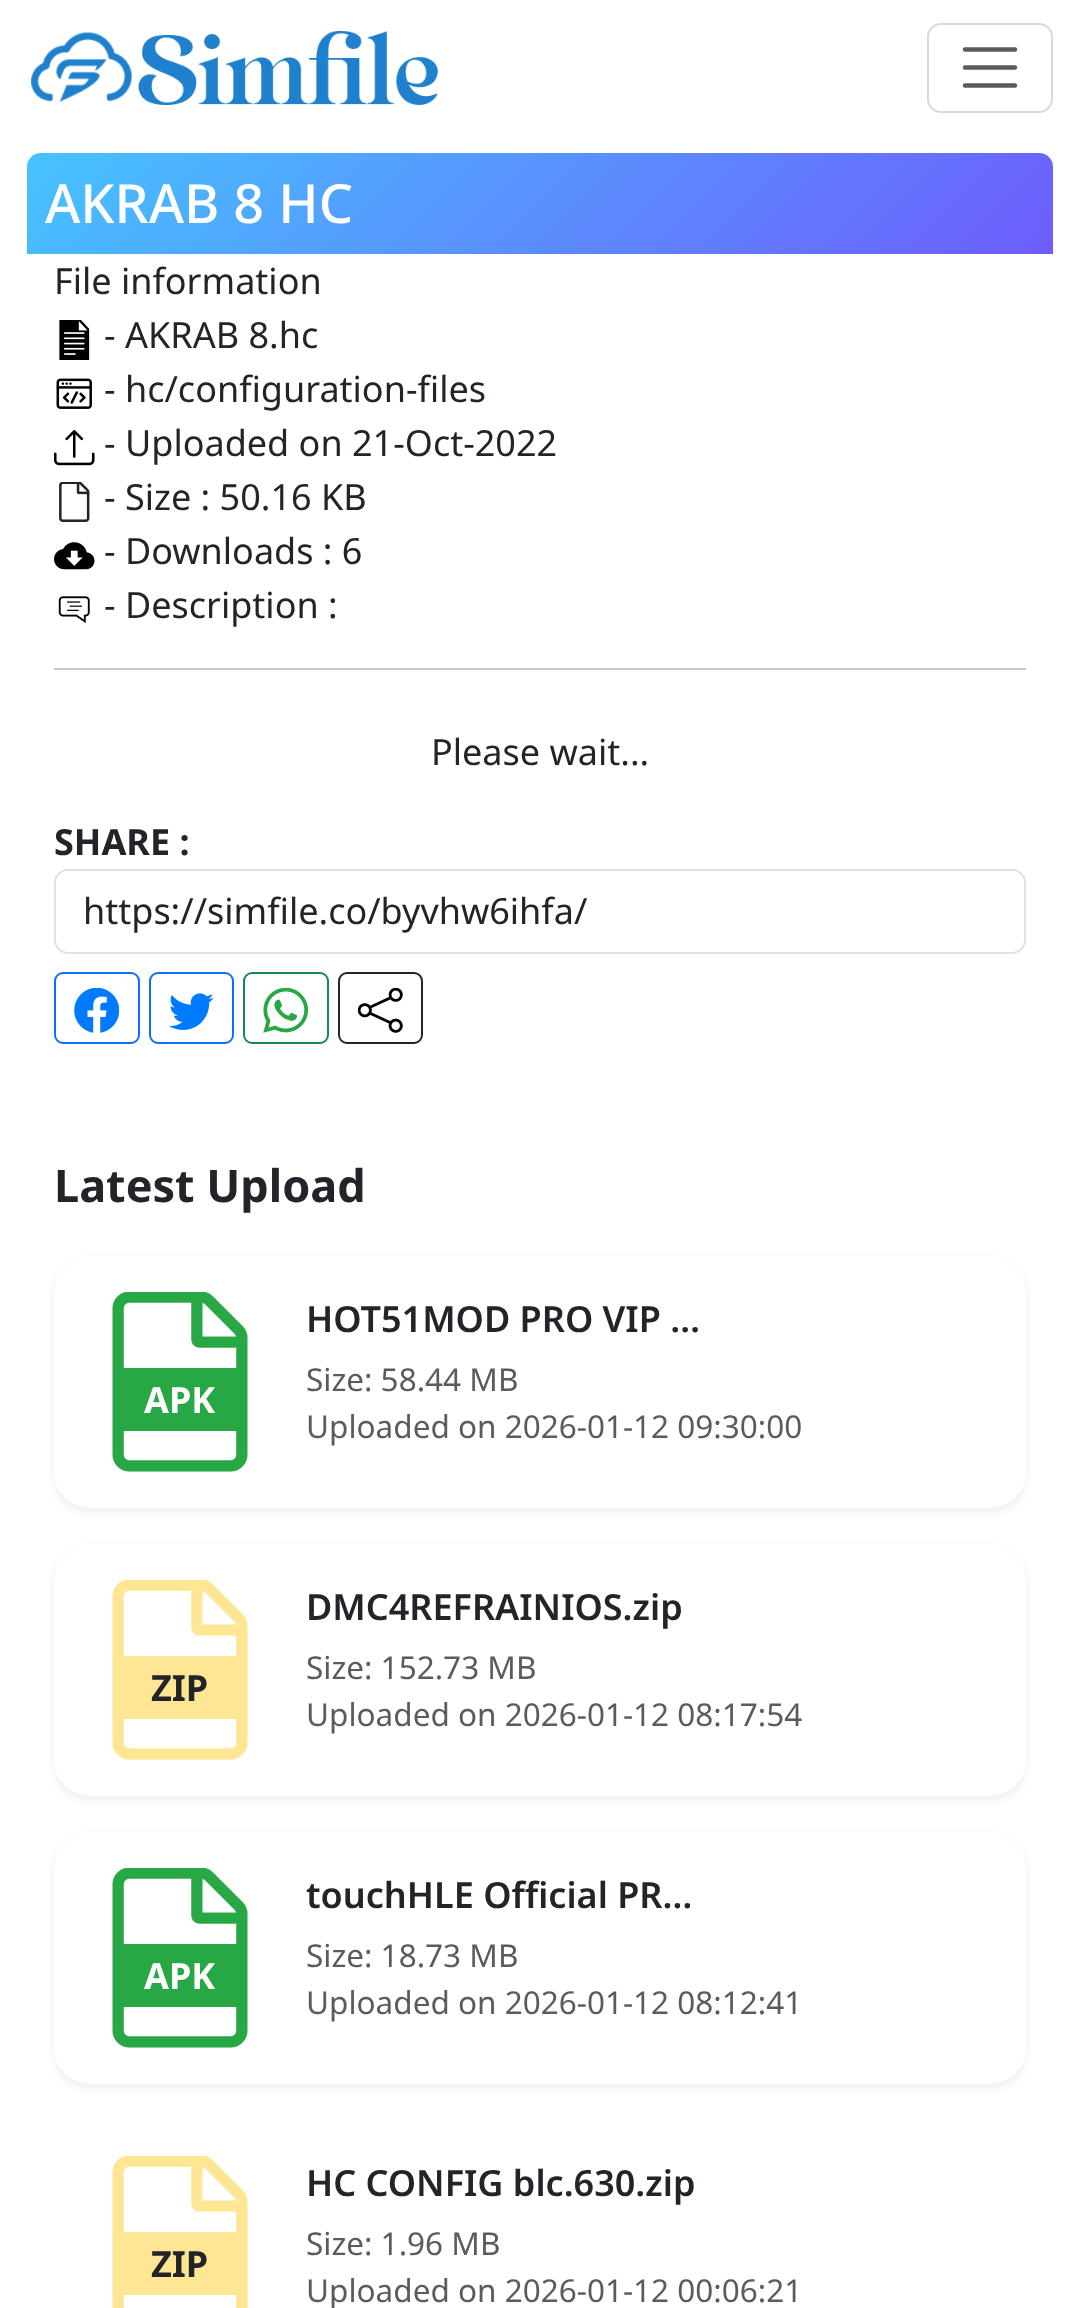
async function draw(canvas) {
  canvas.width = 1080
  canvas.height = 2308
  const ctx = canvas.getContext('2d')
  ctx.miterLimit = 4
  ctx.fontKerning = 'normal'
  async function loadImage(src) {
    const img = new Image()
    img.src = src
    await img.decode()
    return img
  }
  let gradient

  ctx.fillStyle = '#fff'
  ctx.fillRect(0, 0, 1080, 2308)
  ctx.drawImage(await loadImage('image0.png'), 31, 31, 407, 74)
  ctx.beginPath()
  ctx.roundRect(928, 24, 124, 88, 13)
  ctx.strokeStyle = '#d9d9d9'
  ctx.lineWidth = 2
  ctx.stroke()
  ctx.beginPath()
  ctx.moveTo(965, 49.5)
  ctx.lineTo(1015, 49.5)
  ctx.moveTo(965, 67.5)
  ctx.lineTo(1015, 67.5)
  ctx.moveTo(965, 85.5)
  ctx.lineTo(1015, 85.5)
  ctx.strokeStyle = '#595c5f'
  ctx.lineWidth = 4.5
  ctx.lineCap = 'round'
  ctx.stroke()
  gradient = ctx.createLinearGradient(258, -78, 822, 485)
  gradient.addColorStop(0, '#46c3ff')
  gradient.addColorStop(1, '#6d5dfc')
  ctx.fillStyle = gradient
  ctx.beginPath()
  ctx.roundRect(27, 153, 1026, 101, [14, 14, 0, 0])
  ctx.fill()
  ctx.font = '500 54px Noto Sans'
  ctx.fillStyle = '#fff'
  ctx.fillText('AKRAB 8 HC', 45, 223)
  ctx.font = '36px Noto Sans'
  ctx.fillStyle = '#212529'
  ctx.fillText('File information', 54, 294)
  ctx.drawImage(await loadImage('image1.png'), 59, 320, 31, 40)
  ctx.fillText('- AKRAB 8.hc', 104, 348)
  ctx.drawImage(await loadImage('image2.png'), 56, 378, 36, 31)
  ctx.fillText('- hc/configuration-files', 104, 402)
  ctx.drawImage(await loadImage('image3.png'), 54, 430, 41, 36)
  ctx.fillText('- Uploaded on 21-Oct-2022', 104, 456)
  ctx.drawImage(await loadImage('image4.png'), 59, 482, 31, 40)
  ctx.fillText('- Size : 50.16 KB', 104, 510)
  ctx.drawImage(await loadImage('image5.png'), 54, 542, 41, 28)
  ctx.fillText('- Downloads : 6', 104, 564)
  ctx.drawImage(await loadImage('image6.png'), 58, 596, 32, 28)
  ctx.fillText('- Description :', 104, 618)
  ctx.fillStyle = '#c8c9ca'
  ctx.fillRect(54, 668, 972, 2)
  ctx.fillStyle = '#212529'
  ctx.fillText('Please wait...', 431, 765)
  ctx.font = 'bold 36px Noto Sans'
  ctx.fillText('SHARE :', 54, 855)
  ctx.beginPath()
  ctx.roundRect(55, 870, 970, 83, 13)
  ctx.strokeStyle = '#dee2e6'
  ctx.lineWidth = 2
  ctx.stroke()
  ctx.font = '36px Noto Sans'
  ctx.fillText('https://simfile.co/byvhw6ihfa/', 83, 924)
  ctx.beginPath()
  ctx.roundRect(55, 973, 84, 70, 8)
  ctx.strokeStyle = '#0d6efd'
  ctx.stroke()
  ctx.drawImage(await loadImage('image7.png'), 74, 988, 45, 45)
  ctx.beginPath()
  ctx.roundRect(150, 973, 83, 70, 8)
  ctx.stroke()
  ctx.drawImage(await loadImage('image8.png'), 169, 993, 45, 37)
  ctx.beginPath()
  ctx.roundRect(244, 973, 84, 70, 8)
  ctx.strokeStyle = '#198754'
  ctx.stroke()
  ctx.drawImage(await loadImage('image9.png'), 263, 988, 45, 45)
  ctx.beginPath()
  ctx.roundRect(339, 973, 83, 70, 8)
  ctx.strokeStyle = '#212529'
  ctx.stroke()
  ctx.drawImage(await loadImage('image10.png'), 358, 988, 45, 45)
  ctx.font = 'bold 45px Noto Sans'
  ctx.fillText('Latest Upload', 54, 1202)
  ctx.fillStyle = '#00000012'
  ctx.filter = 'blur(4.5px)'
  ctx.beginPath()
  ctx.roundRect(54, 1260, 972, 252, 36)
  ctx.fill()
  ctx.filter = 'none'
  ctx.fillStyle = '#fff'
  ctx.beginPath()
  ctx.roundRect(54, 1256, 972, 252, 36)
  ctx.fill()
  ctx.drawImage(await loadImage('image11.png'), 112, 1292, 136, 180)
  ctx.fillStyle = '#28a745'
  ctx.fillRect(123, 1368, 114, 63)
  ctx.font = 'bold 36px Noto Sans'
  ctx.fillStyle = '#fff'
  ctx.fillText('APK', 144, 1413)
  ctx.font = '600 36px Noto Sans'
  ctx.fillStyle = '#212529'
  ctx.fillText('HOT51MOD PRO VIP …', 306, 1332)
  ctx.font = '31.5px Noto Sans'
  ctx.fillStyle = '#595c5f'
  ctx.fillText('Size: 58.44 MB', 306, 1391)
  ctx.fillText('Uploaded on 2026-01-12 09:30:00', 306, 1438)
  ctx.fillStyle = '#00000012'
  ctx.filter = 'blur(4.5px)'
  ctx.beginPath()
  ctx.roundRect(54, 1548, 972, 252, 36)
  ctx.fill()
  ctx.filter = 'none'
  ctx.fillStyle = '#fff'
  ctx.beginPath()
  ctx.roundRect(54, 1544, 972, 252, 36)
  ctx.fill()
  ctx.drawImage(await loadImage('image12.png'), 112, 1580, 136, 180)
  ctx.fillStyle = '#ffe694'
  ctx.fillRect(123, 1656, 114, 63)
  ctx.font = 'bold 36px Noto Sans'
  ctx.fillStyle = '#212529'
  ctx.fillText('ZIP', 151, 1701)
  ctx.font = '600 36px Noto Sans'
  ctx.fillText('DMC4REFRAINIOS.zip', 306, 1620)
  ctx.font = '31.5px Noto Sans'
  ctx.fillStyle = '#595c5f'
  ctx.fillText('Size: 152.73 MB', 306, 1679)
  ctx.fillText('Uploaded on 2026-01-12 08:17:54', 306, 1726)
  ctx.fillStyle = '#00000012'
  ctx.filter = 'blur(4.5px)'
  ctx.beginPath()
  ctx.roundRect(54, 1836, 972, 252, 36)
  ctx.fill()
  ctx.filter = 'none'
  ctx.fillStyle = '#fff'
  ctx.beginPath()
  ctx.roundRect(54, 1832, 972, 252, 36)
  ctx.fill()
  ctx.drawImage(await loadImage('image11.png'), 112, 1868, 136, 180)
  ctx.fillStyle = '#28a745'
  ctx.fillRect(123, 1944, 114, 63)
  ctx.font = 'bold 36px Noto Sans'
  ctx.fillStyle = '#fff'
  ctx.fillText('APK', 144, 1989)
  ctx.font = '600 36px Noto Sans'
  ctx.fillStyle = '#212529'
  ctx.fillText('touchHLE Official PR…', 306, 1908)
  ctx.font = '31.5px Noto Sans'
  ctx.fillStyle = '#595c5f'
  ctx.fillText('Size: 18.73 MB', 306, 1967)
  ctx.fillText('Uploaded on 2026-01-12 08:12:41', 306, 2014)
  ctx.drawImage(await loadImage('image13.png'), 112, 2156, 136, 152)
  ctx.fillStyle = '#ffe694'
  ctx.fillRect(123, 2232, 114, 63)
  ctx.font = 'bold 36px Noto Sans'
  ctx.fillStyle = '#212529'
  ctx.fillText('ZIP', 151, 2277)
  ctx.font = '600 36px Noto Sans'
  ctx.fillText('HC CONFIG blc.630.zip', 306, 2196)
  ctx.font = '31.5px Noto Sans'
  ctx.fillStyle = '#595c5f'
  ctx.fillText('Size: 1.96 MB', 306, 2255)
  ctx.fillText('Uploaded on 2026-01-12 00:06:21', 306, 2302)
}

draw(document.querySelector('canvas'))
